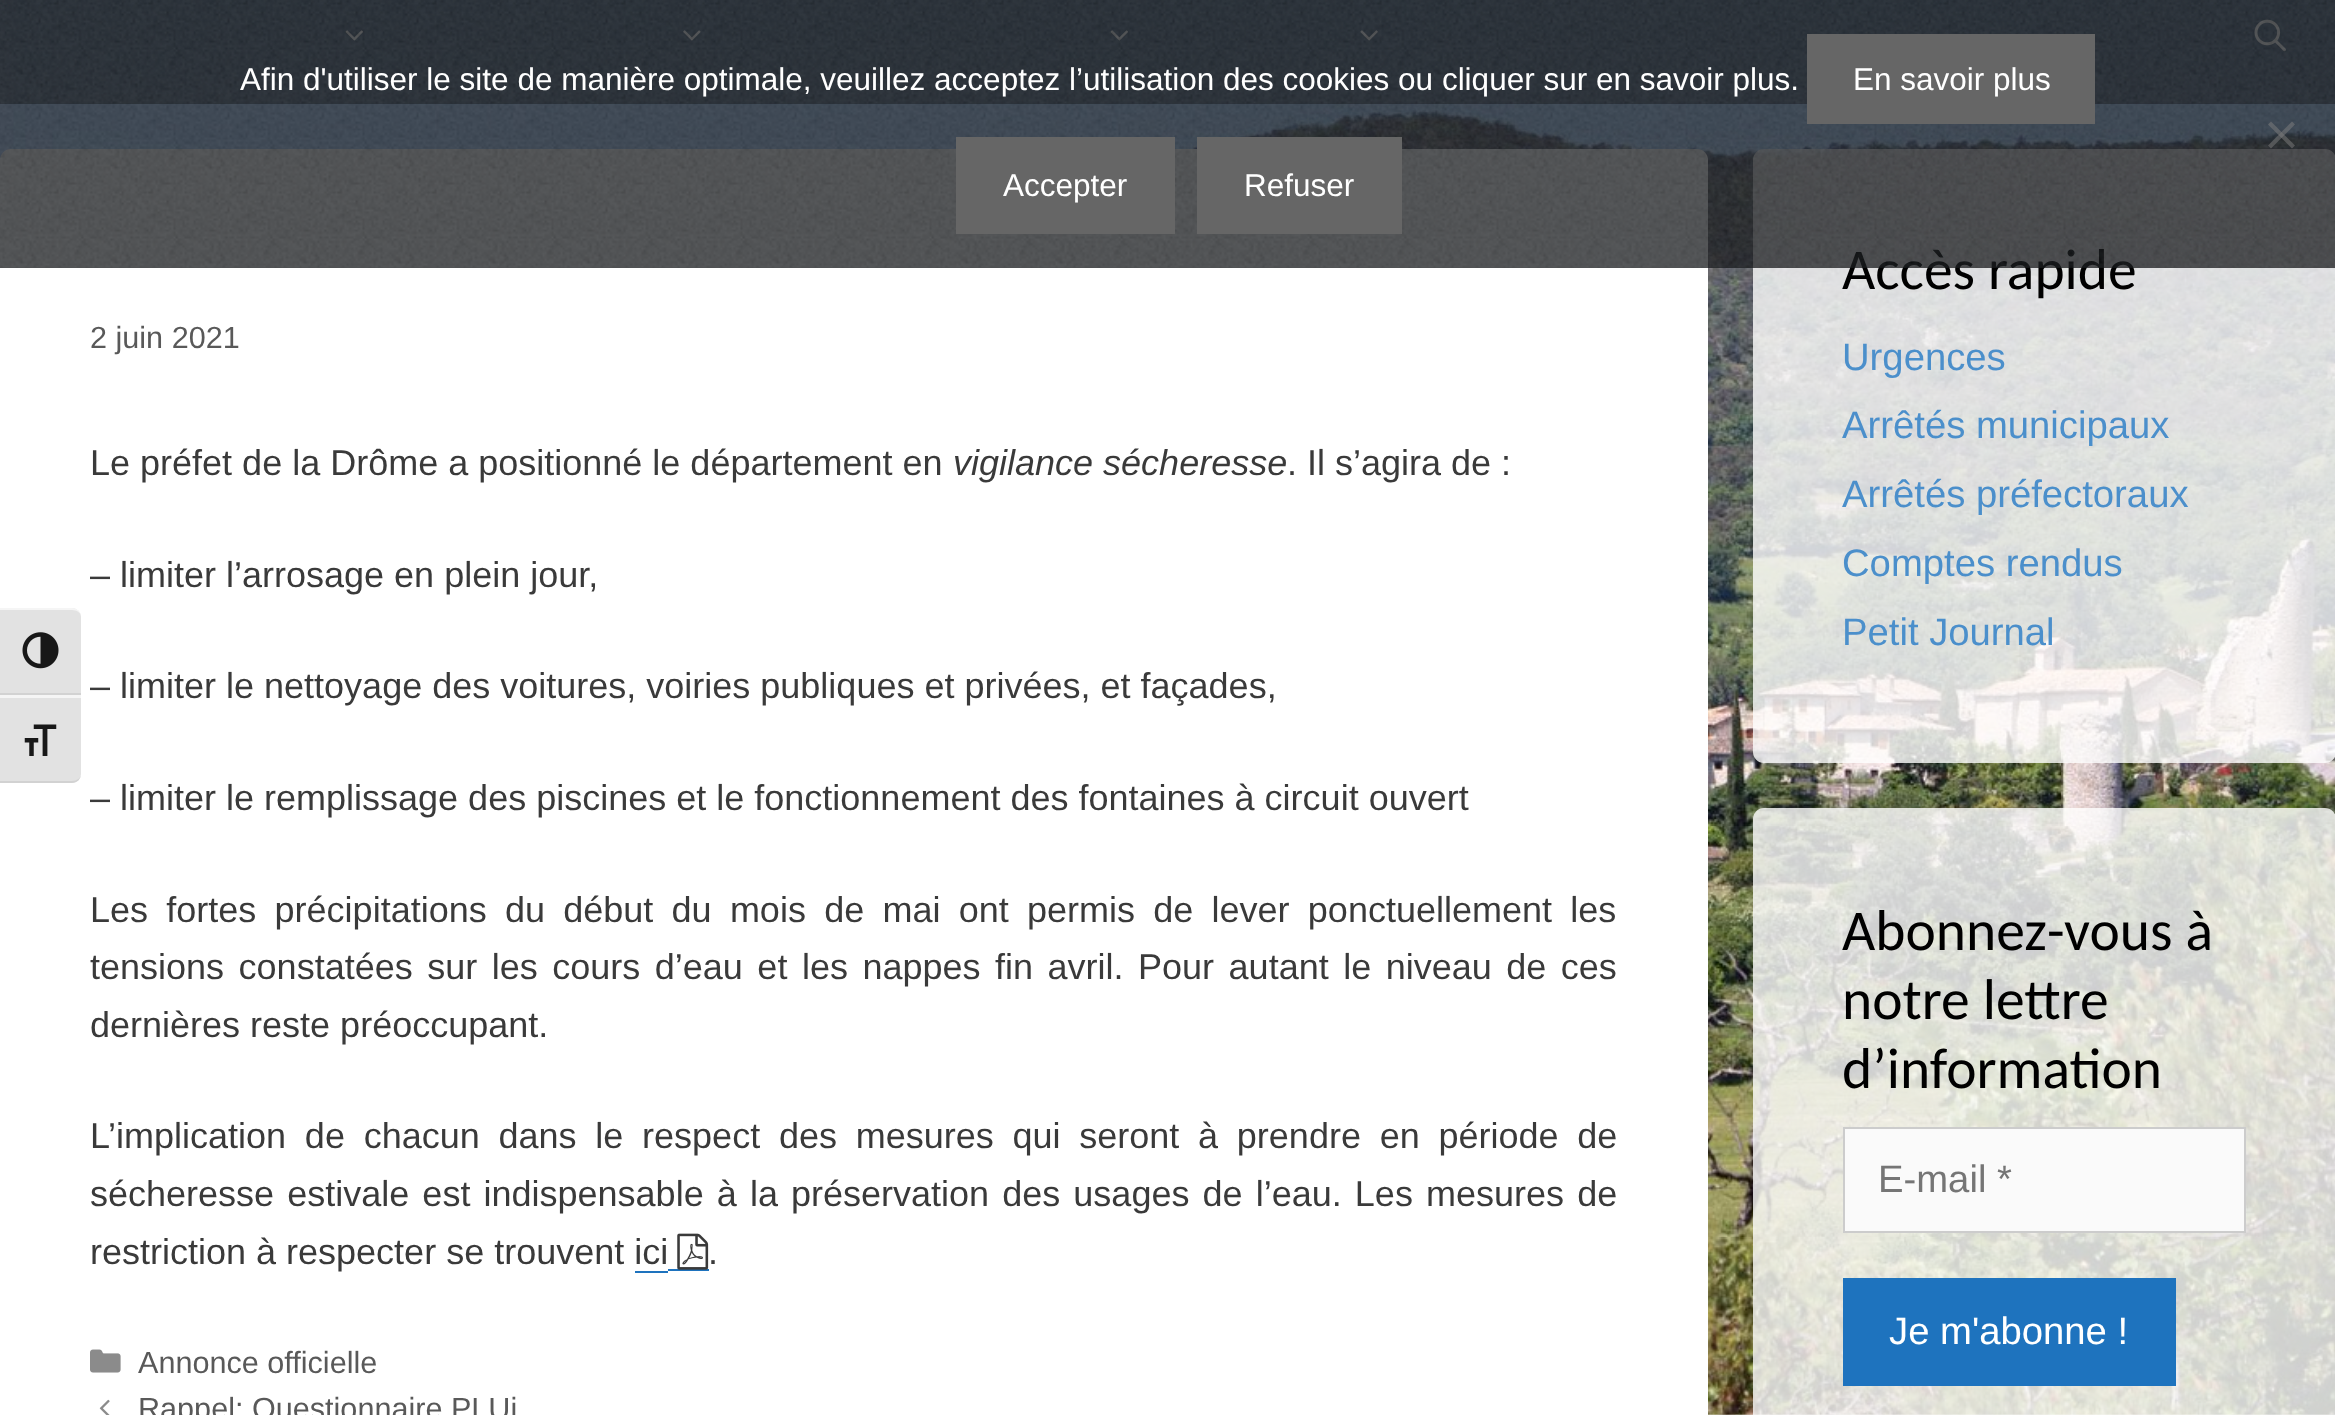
async function draw(canvas) {
  canvas.width = 2335
  canvas.height = 1415
  const ctx = canvas.getContext('2d')
  ctx.miterLimit = 4
  ctx.fontKerning = 'normal'
  async function loadImage(src) {
    const img = new Image()
    img.src = src
    await img.decode()
    return img
  }

  ctx.fillStyle = '#fff'
  ctx.fillRect(0, 0, 2335, 1415)
  ctx.drawImage(await loadImage('image0.png'), 0, 0, 2335, 1415)
  ctx.fillStyle = '#10131580'
  ctx.fillRect(0, 0, 2335, 104)
  ctx.drawImage(await loadImage('image1.png'), 0, 0, 2335, 103)
  ctx.drawImage(await loadImage('image2.png'), 345, 30, 18, 11)
  ctx.drawImage(await loadImage('image3.png'), 683, 30, 18, 11)
  ctx.drawImage(await loadImage('image4.png'), 1110, 30, 18, 11)
  ctx.drawImage(await loadImage('image5.png'), 1360, 30, 18, 11)
  ctx.drawImage(await loadImage('image6.png'), 2254, 19, 32, 33)
  ctx.fillStyle = '#fff'
  ctx.beginPath()
  ctx.roundRect(0, 149, 1708, 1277, 11)
  ctx.fill()
  ctx.fillStyle = '#ffffffcc'
  ctx.beginPath()
  ctx.roundRect(1753, 149, 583, 614, 11)
  ctx.fill()
  ctx.font = '57.5px Carlito'
  ctx.fillStyle = '#000'
  ctx.fillText('Accès rapide', 1842, 289)
  ctx.fillStyle = '#101315bf'
  ctx.fillRect(0, 0, 2335, 268)
  ctx.drawImage(await loadImage('image7.png'), 0, 0, 2335, 268)
  ctx.font = '31.5px Liberation Sans'
  ctx.fillStyle = '#fff'
  ctx.fillText('Afin d\'utiliser le site de manière optimale, veuillez acceptez l’utilisation des cookies ou cliquer sur en savoir plus.', 240, 90)
  ctx.fillStyle = '#666'
  ctx.fillRect(1807, 34, 288, 90)
  ctx.fillStyle = '#fff'
  ctx.fillText('En savoir plus', 1853, 90)
  ctx.fillStyle = '#80808080'
  ctx.beginPath()
  ctx.moveTo(2292, 121.5)
  ctx.lineTo(2295, 124.5)
  ctx.lineTo(2271, 148.5)
  ctx.lineTo(2268, 145.5)
  ctx.closePath()
  ctx.fill()
  ctx.beginPath()
  ctx.moveTo(2268, 124.5)
  ctx.lineTo(2271, 121.5)
  ctx.lineTo(2295, 145.5)
  ctx.lineTo(2292, 148.5)
  ctx.closePath()
  ctx.fill()
  ctx.fillStyle = '#666'
  ctx.fillRect(956, 137, 219, 97)
  ctx.fillStyle = '#fff'
  ctx.fillText('Accepter', 1003, 196)
  ctx.fillStyle = '#666'
  ctx.fillRect(1197, 137, 205, 97)
  ctx.fillStyle = '#fff'
  ctx.fillText('Refuser', 1244, 196)
  ctx.fillStyle = '#e2e2e2'
  ctx.beginPath()
  ctx.roundRect(0, 608, 81, 87, [0, 9, 0, 0])
  ctx.fill()
  ctx.fillStyle = '#f5f5f5'
  ctx.beginPath()
  ctx.moveTo(0, 610)
  ctx.lineTo(72, 610)
  ctx.bezierCurveTo(77, 610, 81, 613, 81, 616)
  ctx.bezierCurveTo(81, 612, 77, 608, 72, 608)
  ctx.lineTo(0, 608)
  ctx.closePath()
  ctx.fill()
  ctx.fillStyle = '#d2d2d2'
  ctx.fillRect(0, 693, 81, 2)
  ctx.drawImage(await loadImage('image8.png'), 22, 632, 37, 37)
  ctx.fillStyle = '#e2e2e2'
  ctx.beginPath()
  ctx.roundRect(0, 695, 81, 88, [0, 0, 9, 0])
  ctx.fill()
  ctx.fillStyle = '#f5f5f5'
  ctx.fillRect(0, 695, 81, 3)
  ctx.fillStyle = '#d2d2d2'
  ctx.beginPath()
  ctx.moveTo(0, 781)
  ctx.lineTo(0, 783)
  ctx.lineTo(72, 783)
  ctx.bezierCurveTo(77, 783, 81, 779, 81, 774)
  ctx.bezierCurveTo(81, 778, 77, 781, 72, 781)
  ctx.closePath()
  ctx.fill()
  ctx.drawImage(await loadImage('image9.png'), 24, 724, 33, 32)
  ctx.font = '30.6px Liberation Sans'
  ctx.fillStyle = '#595959'
  ctx.fillText('2 juin 2021', 90, 348)
  ctx.font = '36px Liberation Sans'
  ctx.fillStyle = '#3a3a3a'
  ctx.fillText('Le préfet de la Drôme a positionné le département en', 90, 475)
  ctx.font = 'italic 36px Liberation Sans'
  ctx.fillText('vigilance sécheresse', 953, 475)
  ctx.font = '36px Liberation Sans'
  ctx.fillText('. Il s’agira de :', 1287, 475)
  ctx.fillText('– limiter l’arrosage en plein jour,', 90, 587)
  ctx.fillText('– limiter le nettoyage des voitures, voiries publiques et privées, et façades,', 90, 698)
  ctx.fillText('– limiter le remplissage des piscines et le fonctionnement des fontaines à circuit ouvert', 90, 810)
  ctx.wordSpacing = '8.25px'
  ctx.fillText('Les fortes précipitations du début du mois de mai ont permis de lever ponctuellement les', 90, 922)
  ctx.wordSpacing = '4.5px'
  ctx.fillText('tensions constatées sur les cours d’eau et les nappes fin avril. Pour autant le niveau de ces', 90, 979)
  ctx.wordSpacing = '0px'
  ctx.fillText('dernières reste préoccupant.', 90, 1037)
  ctx.wordSpacing = '8.75px'
  ctx.fillText('L’implication de chacun dans le respect des mesures qui seront à prendre en période de', 90, 1148)
  ctx.wordSpacing = '3.1px'
  ctx.fillText('sécheresse estivale est indispensable à la préservation des usages de l’eau. Les mesures de', 90, 1206)
  ctx.wordSpacing = '0px'
  ctx.fillText('restriction à respecter se trouvent ici', 90, 1264)
  ctx.fillStyle = '#1e73be'
  ctx.fillRect(668, 1269, 41, 2)
  ctx.drawImage(await loadImage('image10.png'), 677, 1233, 32, 37)
  ctx.fillStyle = '#3a3a3a'
  ctx.fillText('.', 708, 1264)
  ctx.fillStyle = '#1e73be'
  ctx.fillRect(635, 1271, 33, 2)
  ctx.drawImage(await loadImage('image11.png'), 90, 1349, 31, 24)
  ctx.font = '30.6px Liberation Sans'
  ctx.fillStyle = '#595959'
  ctx.fillText('Annonce officielle', 138, 1373)
  ctx.drawImage(await loadImage('image12.png'), 99, 1399, 11, 16)
  ctx.fillText('Rappel: Questionnaire PLUi', 138, 1419)
  ctx.font = '38.25px Liberation Sans'
  ctx.fillStyle = '#4b8fcb'
  ctx.fillText('Urgences', 1842, 370)
  ctx.fillText('Arrêtés municipaux', 1842, 438)
  ctx.fillText('Arrêtés préfectoraux', 1842, 507)
  ctx.fillText('Comptes rendus', 1842, 576)
  ctx.fillText('Petit Journal', 1842, 645)
  ctx.fillStyle = '#ffffffcc'
  ctx.beginPath()
  ctx.roundRect(1753, 808, 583, 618, 11)
  ctx.fill()
  ctx.font = '57.5px Carlito'
  ctx.fillStyle = '#000'
  ctx.fillText('Abonnez-vous à', 1842, 950)
  ctx.fillText('notre lettre', 1842, 1019)
  ctx.fillText('d’information', 1842, 1088)
  ctx.fillStyle = '#fafafa'
  ctx.beginPath()
  ctx.rect(1844, 1128, 401, 104)
  ctx.fill()
  ctx.strokeStyle = '#ccc'
  ctx.lineWidth = 2
  ctx.stroke()
  ctx.font = '38.25px Liberation Sans'
  ctx.fillStyle = '#757575'
  ctx.fillText('E-mail *', 1878, 1192)
  ctx.fillStyle = '#1e73be'
  ctx.fillRect(1843, 1278, 333, 108)
  ctx.fillStyle = '#fff'
  ctx.fillText('Je m\'abonne !', 1889, 1344)
}

draw(document.querySelector('canvas'))
